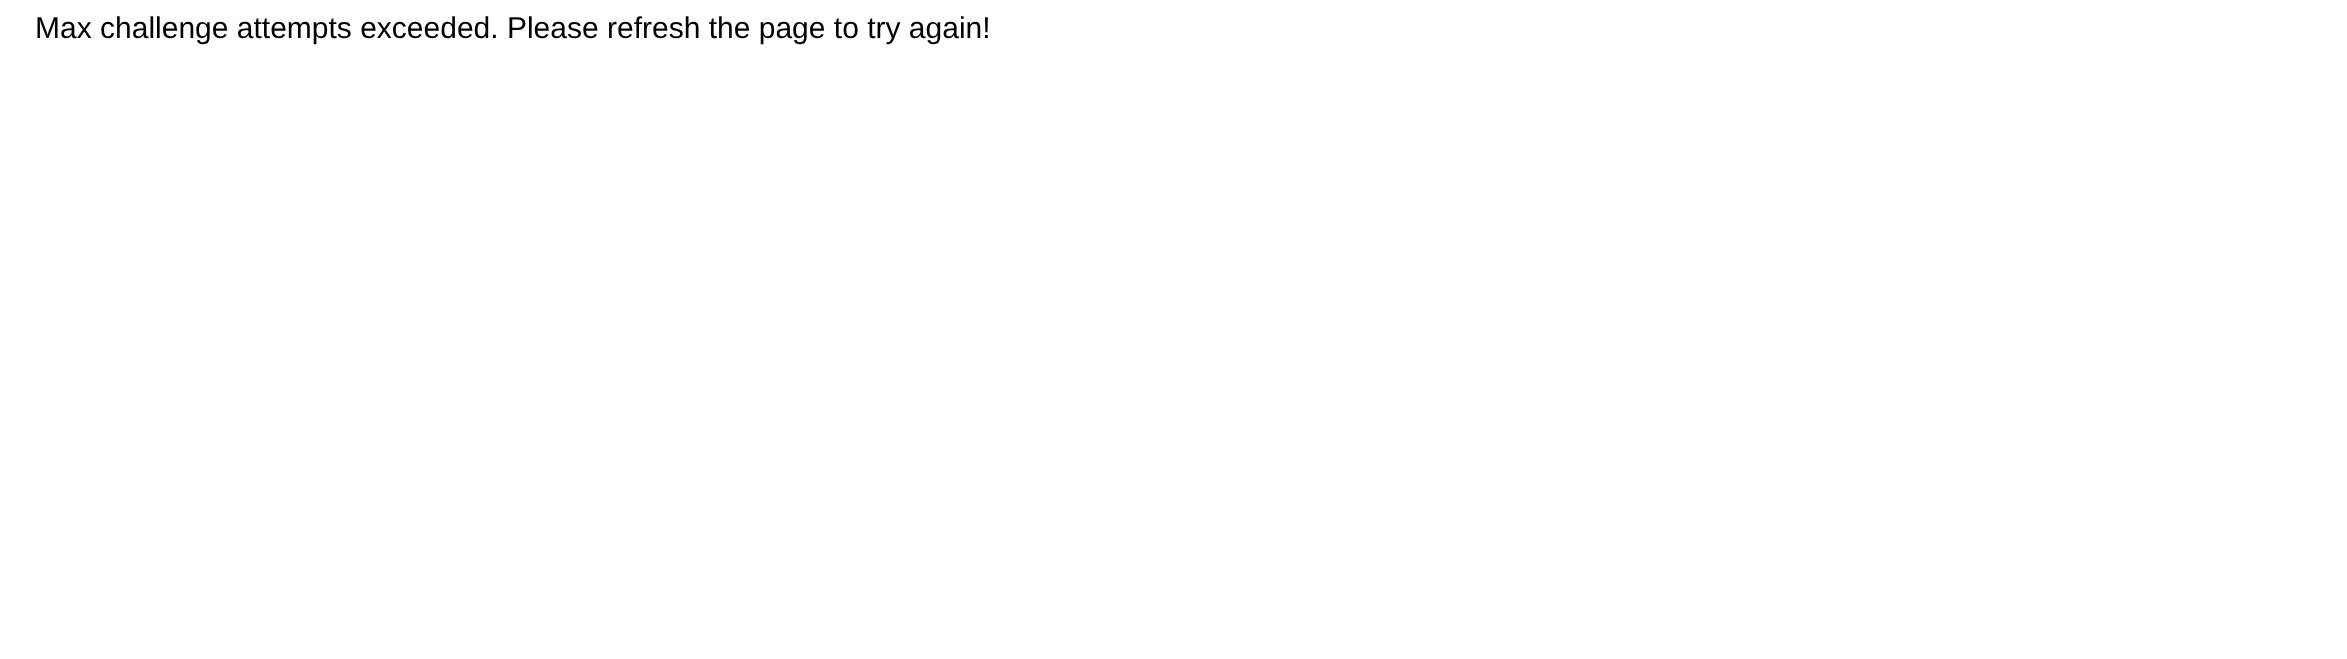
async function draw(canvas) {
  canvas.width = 2347
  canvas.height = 659
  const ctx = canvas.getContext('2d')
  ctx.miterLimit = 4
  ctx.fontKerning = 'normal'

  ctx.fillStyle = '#fff'
  ctx.fillRect(0, 0, 2347, 659)
  ctx.font = '30px Liberation Sans'
  ctx.fillStyle = '#000'
  ctx.fillText('Max challenge attempts exceeded. Please refresh the page to try again!', 35, 38)
}

draw(document.querySelector('canvas'))
